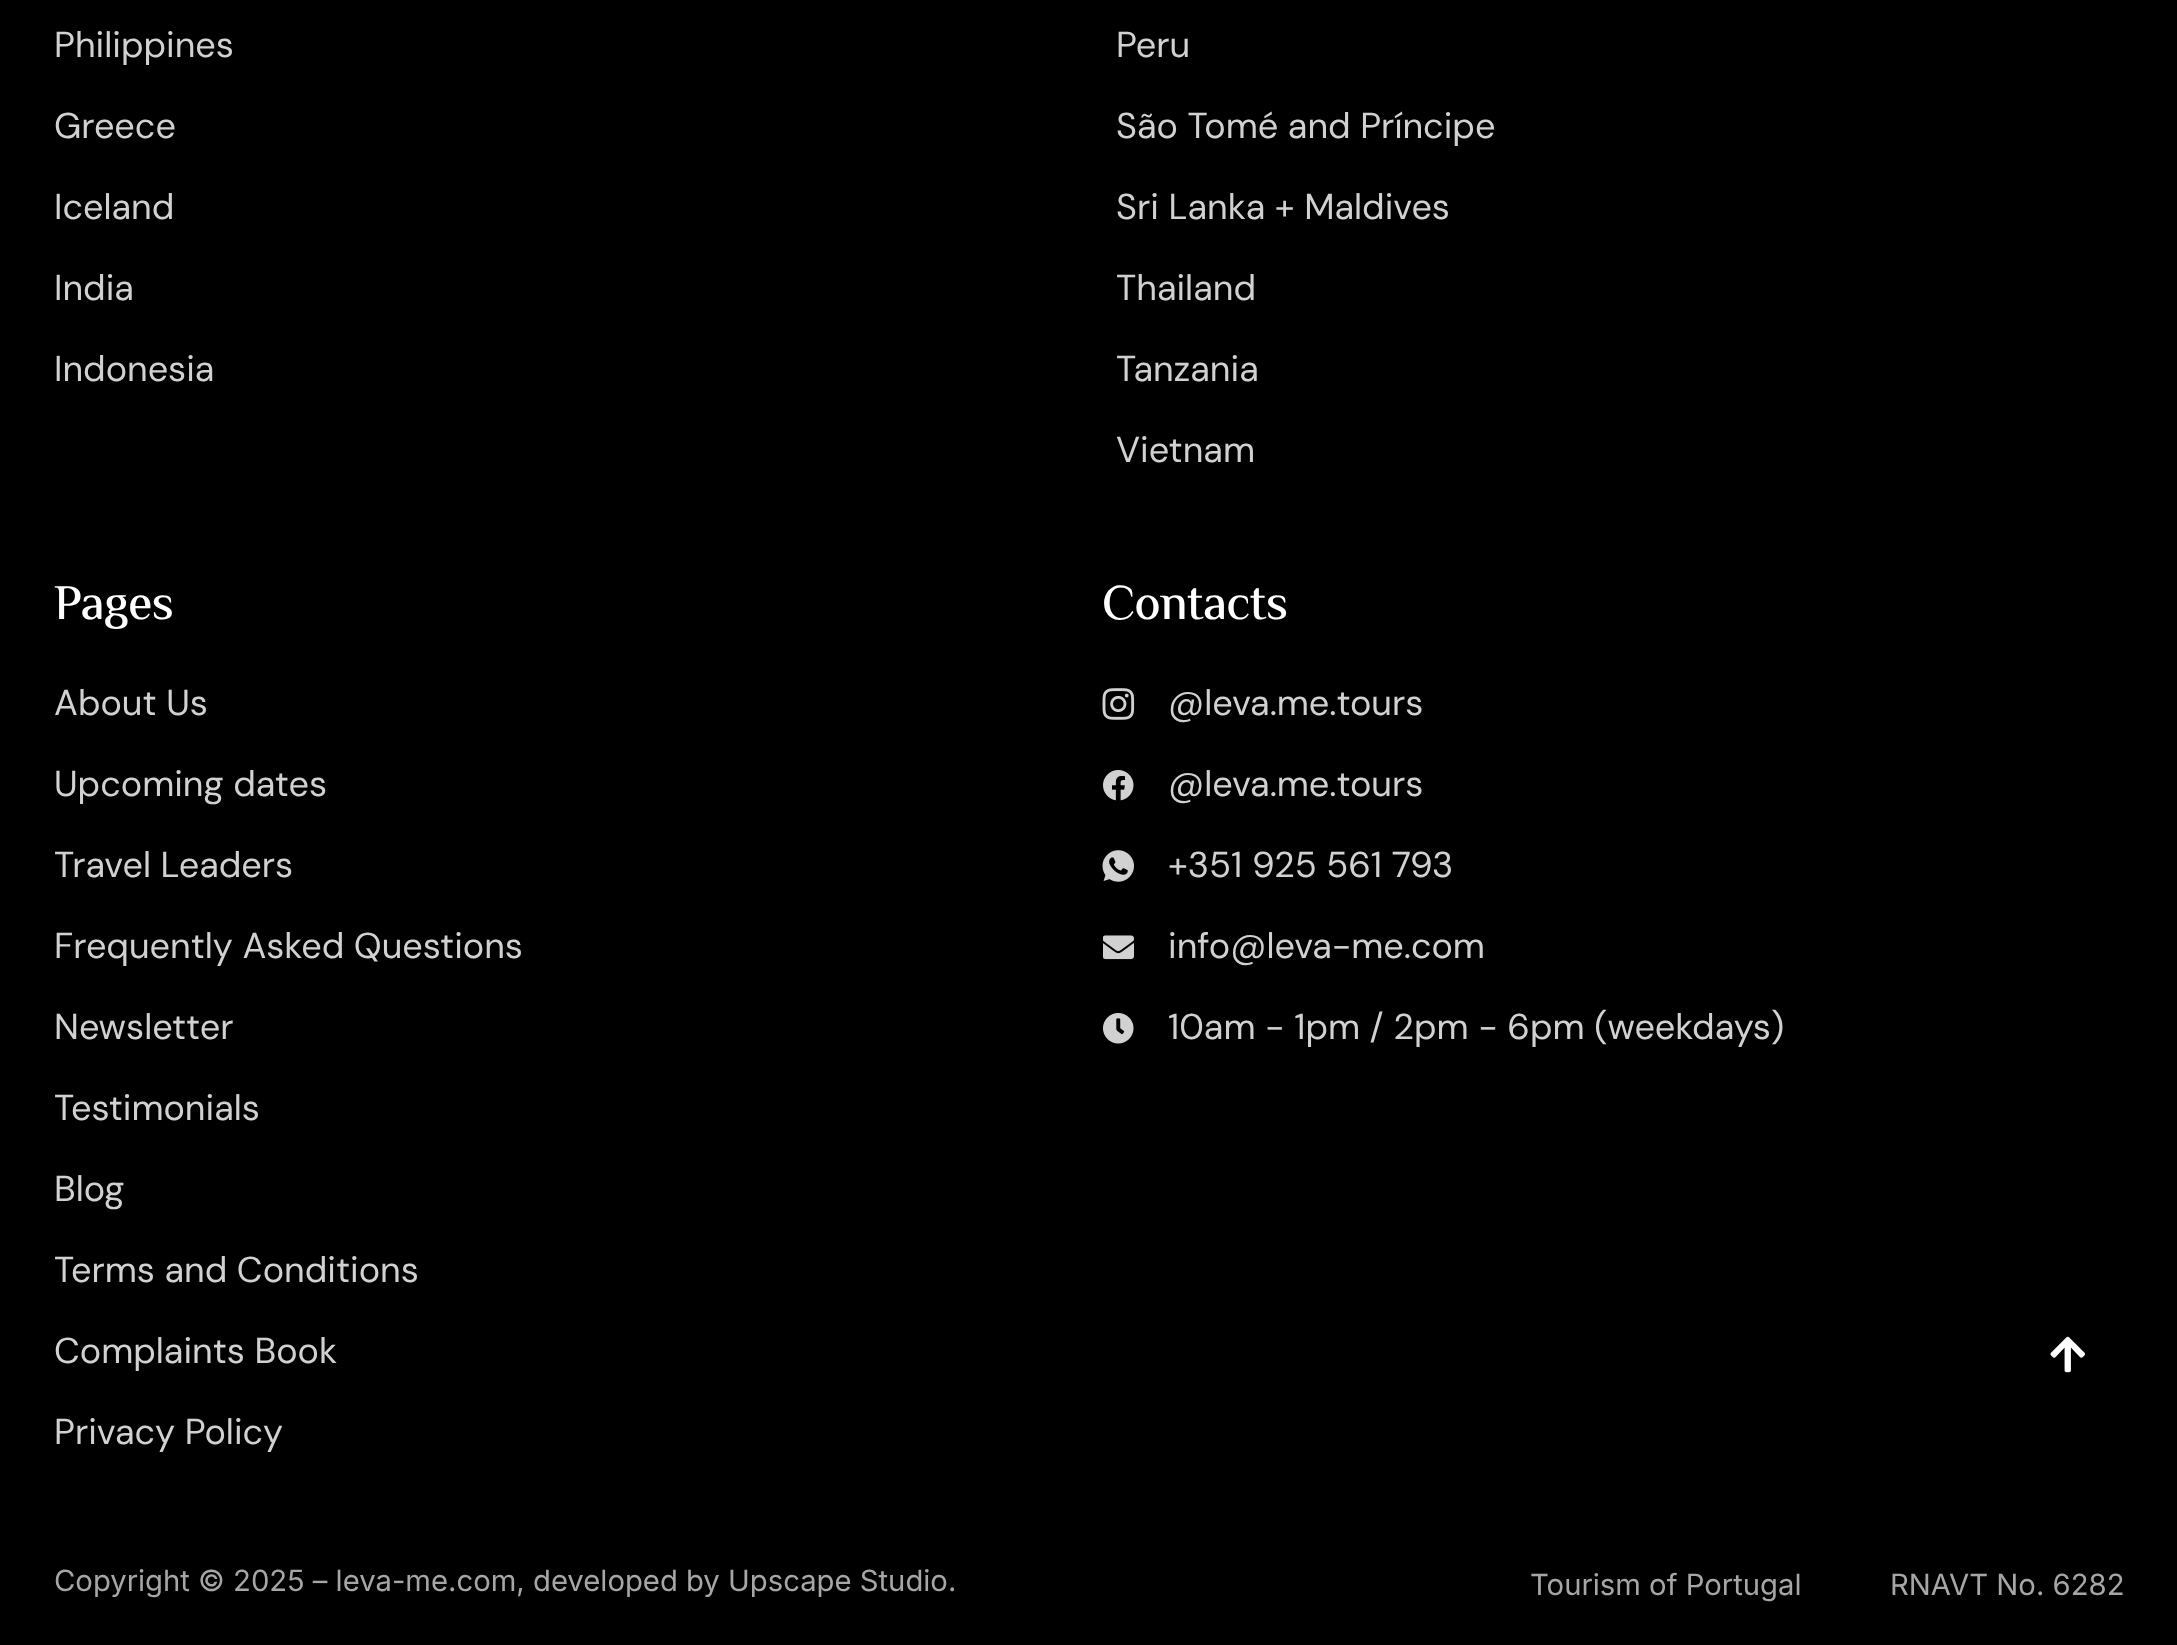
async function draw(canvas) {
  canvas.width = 2177
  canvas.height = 1645
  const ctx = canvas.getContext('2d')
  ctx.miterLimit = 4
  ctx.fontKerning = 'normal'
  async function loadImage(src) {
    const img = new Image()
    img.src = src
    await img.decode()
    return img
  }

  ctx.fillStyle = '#000'
  ctx.fillRect(0, 0, 2177, 1645)
  ctx.font = '36px DM Sans'
  ctx.fillStyle = '#d1d1d1'
  ctx.fillText('Philippines', 54, 57)
  ctx.fillText('Greece', 54, 138)
  ctx.fillText('Iceland', 54, 219)
  ctx.fillText('India', 54, 300)
  ctx.fillText('Indonesia', 54, 381)
  ctx.fillText('Peru', 1116, 57)
  ctx.fillText('São Tomé and Príncipe', 1116, 138)
  ctx.fillText('Sri Lanka + Maldives', 1116, 219)
  ctx.fillText('Thailand', 1116, 300)
  ctx.fillText('Tanzania', 1116, 381)
  ctx.fillText('Vietnam', 1116, 462)
  ctx.letterSpacing = '-0.75px'
  ctx.font = '500 49.5px El Messiri'
  ctx.fillStyle = '#fff'
  ctx.fillText('Pages', 54, 619)
  ctx.letterSpacing = '0px'
  ctx.font = '36px DM Sans'
  ctx.fillStyle = '#d1d1d1'
  ctx.fillText('About Us', 54, 715)
  ctx.fillText('Upcoming dates', 54, 796)
  ctx.fillText('Travel Leaders', 54, 877)
  ctx.fillText('Frequently Asked Questions', 54, 958)
  ctx.fillText('Newsletter', 54, 1039)
  ctx.fillText('Testimonials', 54, 1120)
  ctx.fillText('Blog', 54, 1201)
  ctx.fillText('Terms and Conditions', 54, 1282)
  ctx.fillText('Complaints Book', 54, 1363)
  ctx.fillText('Privacy Policy', 54, 1444)
  ctx.letterSpacing = '-0.75px'
  ctx.font = '500 49.5px El Messiri'
  ctx.fillStyle = '#fff'
  ctx.fillText('Contacts', 1102, 619)
  ctx.drawImage(await loadImage('image0.png'), 1102, 688, 33, 32)
  ctx.letterSpacing = '0px'
  ctx.font = '36px DM Sans'
  ctx.fillStyle = '#d1d1d1'
  ctx.fillText('@leva.me.tours', 1168, 715)
  ctx.drawImage(await loadImage('image1.png'), 1103, 770, 31, 31)
  ctx.fillText('@leva.me.tours', 1168, 796)
  ctx.drawImage(await loadImage('image2.png'), 1102, 850, 32, 32)
  ctx.fillText('+351 925 561 793', 1168, 877)
  ctx.drawImage(await loadImage('image3.png'), 1103, 935, 31, 25)
  ctx.fillText('info@leva-me.com', 1168, 958)
  ctx.drawImage(await loadImage('image4.png'), 1103, 1013, 31, 31)
  ctx.fillText('10am - 1pm / 2pm - 6pm (weekdays)', 1168, 1039)
  ctx.drawImage(await loadImage('image5.png'), 2050, 1336, 35, 37)
  ctx.font = '29.25px Inter'
  ctx.fillStyle = '#a5a6a7'
  ctx.fillText('Copyright © 2025 – leva-me.com, developed by Upscape Studio.', 54, 1591)
  ctx.fillText('Tourism of Portugal', 1530, 1595)
  ctx.fillText('RNAVT No. 6282', 1890, 1595)
}

draw(document.querySelector('canvas'))
